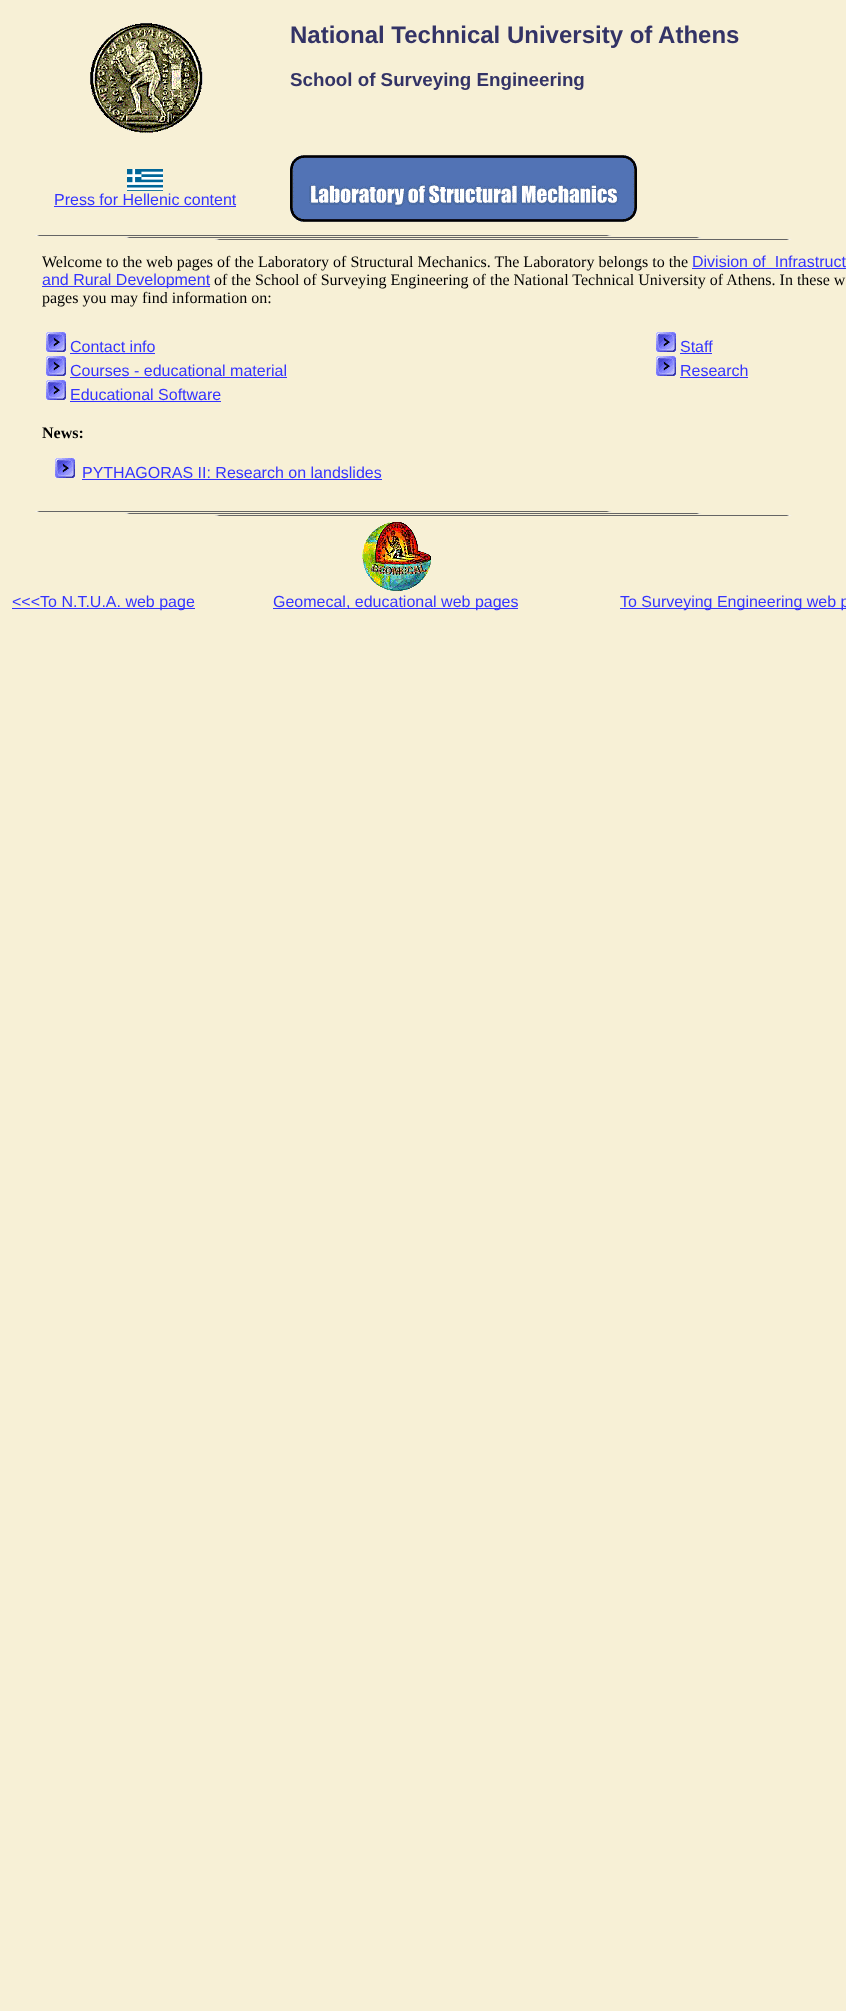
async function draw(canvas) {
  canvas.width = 846
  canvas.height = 2011
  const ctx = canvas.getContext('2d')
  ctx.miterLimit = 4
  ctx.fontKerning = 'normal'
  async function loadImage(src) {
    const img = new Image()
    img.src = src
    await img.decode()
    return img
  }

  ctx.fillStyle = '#f7f0d6'
  ctx.fillRect(0, 0, 846, 2011)
  ctx.drawImage(await loadImage('image0.png'), 90, 23, 113, 110)
  ctx.font = 'bold 24px Liberation Sans'
  ctx.fillStyle = '#336'
  ctx.fillText('National Technical University of Athens', 290, 43)
  ctx.font = 'bold 18.75px Liberation Sans'
  ctx.fillText('School of Surveying Engineering', 290, 86)
  ctx.drawImage(await loadImage('image1.png'), 127, 169, 36, 22)
  ctx.font = '16px Liberation Sans'
  ctx.fillStyle = '#33f'
  ctx.fillText('Press for Hellenic content', 54, 205)
  ctx.fillRect(54, 206, 182, 1)
  ctx.drawImage(await loadImage('image2.png'), 290, 155, 347, 67)
  ctx.drawImage(await loadImage('image3.png'), 35, 235, 757, 5)
  ctx.font = '16px Liberation Serif'
  ctx.fillStyle = '#000'
  ctx.fillText('Welcome to the web pages of the Laboratory of Structural Mechanics. The Laboratory belongs to the', 42, 267)
  ctx.font = '16px Liberation Sans'
  ctx.fillStyle = '#33f'
  ctx.fillText('Division of  Infrastruct', 692, 267)
  ctx.fillRect(692, 268, 154, 1)
  ctx.fillRect(42, 286, 168, 1)
  ctx.fillText('and Rural Development', 42, 285)
  ctx.font = '16px Liberation Serif'
  ctx.fillStyle = '#000'
  ctx.fillText('of the School of Surveying Engineering of the National Technical University of Athens. In these w', 214, 285)
  ctx.fillText('pages you may find information on:', 42, 303)
  ctx.drawImage(await loadImage('image4.png'), 46, 332, 20, 20)
  ctx.font = '16px Liberation Sans'
  ctx.fillStyle = '#33f'
  ctx.fillText('Contact info', 70, 352)
  ctx.fillRect(70, 353, 85, 1)
  ctx.drawImage(await loadImage('image4.png'), 46, 356, 20, 20)
  ctx.fillText('Courses - educational material', 70, 376)
  ctx.fillRect(70, 377, 217, 1)
  ctx.drawImage(await loadImage('image4.png'), 46, 380, 20, 20)
  ctx.fillText('Educational Software', 70, 400)
  ctx.fillRect(70, 401, 151, 1)
  ctx.drawImage(await loadImage('image4.png'), 656, 332, 20, 20)
  ctx.fillText('Staff', 680, 352)
  ctx.fillRect(680, 353, 32, 1)
  ctx.drawImage(await loadImage('image4.png'), 656, 356, 20, 20)
  ctx.fillText('Research', 680, 376)
  ctx.fillRect(680, 377, 68, 1)
  ctx.font = 'bold 16px Liberation Serif'
  ctx.fillStyle = '#000'
  ctx.fillText('News:', 42, 438)
  ctx.drawImage(await loadImage('image4.png'), 55, 458, 20, 20)
  ctx.font = '16px Liberation Sans'
  ctx.fillStyle = '#33f'
  ctx.fillText('PYTHAGORAS II: Research on landslides', 82, 478)
  ctx.fillRect(82, 479, 300, 1)
  ctx.drawImage(await loadImage('image3.png'), 35, 511, 757, 5)
  ctx.fillRect(12, 608, 183, 1)
  ctx.fillText('<<<To N.T.U.A. web page', 12, 607)
  ctx.drawImage(await loadImage('image5.png'), 362, 522, 69, 69)
  ctx.fillRect(273, 608, 245, 1)
  ctx.fillText('Geomecal, educational web pages', 273, 607)
  ctx.fillRect(620, 608, 226, 1)
  ctx.fillText('To Surveying Engineering web p', 620, 607)
}

draw(document.querySelector('canvas'))
